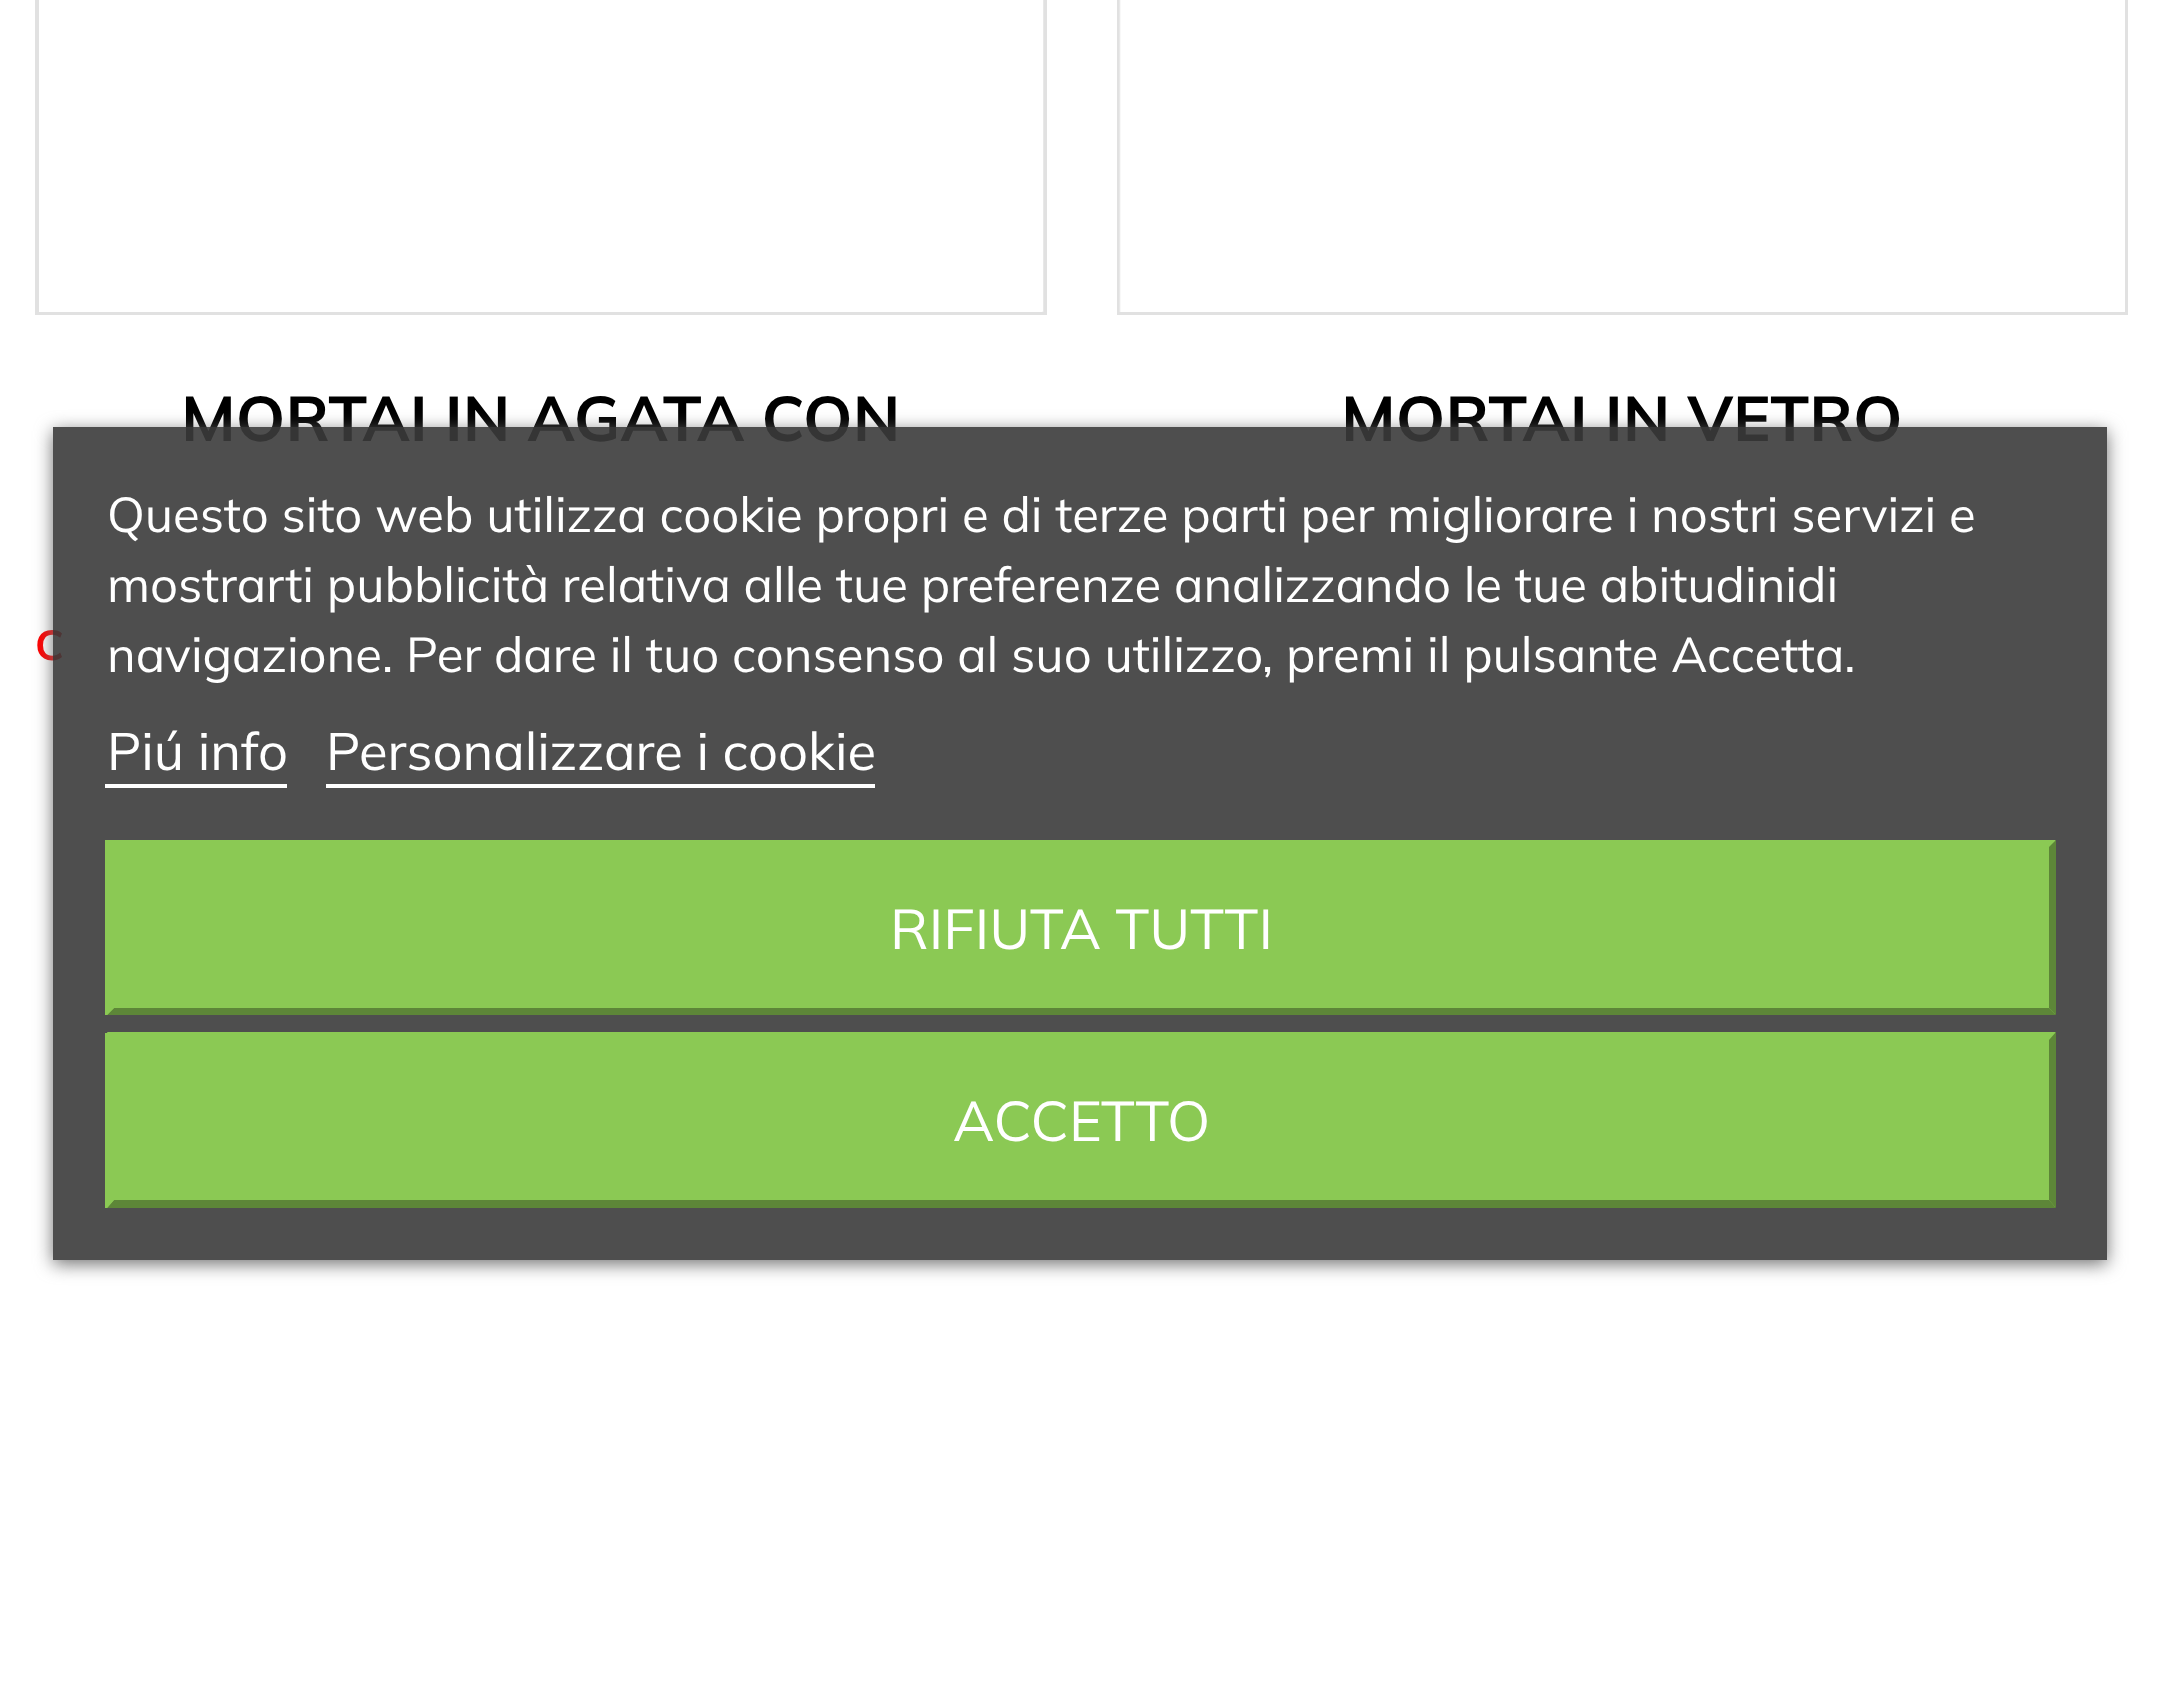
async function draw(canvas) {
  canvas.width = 2163
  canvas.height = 1684
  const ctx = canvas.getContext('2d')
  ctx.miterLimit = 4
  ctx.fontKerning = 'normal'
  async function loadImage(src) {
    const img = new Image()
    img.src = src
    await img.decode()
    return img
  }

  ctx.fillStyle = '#fff'
  ctx.fillRect(0, 0, 2163, 1684)
  ctx.strokeStyle = '#e1e1e1'
  ctx.lineWidth = 4
  ctx.strokeRect(37, -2, 1008, 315)
  ctx.drawImage(await loadImage('image0.png'), 39, 0, 1005, 312)
  ctx.font = 'bold 63px Mulish'
  ctx.fillStyle = '#000'
  ctx.fillText('MORTAI IN AGATA CON', 181, 441)
  ctx.font = 'bold 42px Mulish'
  ctx.fillStyle = '#f00'
  ctx.fillText('C', 35, 660)
  ctx.strokeRect(1119, -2, 1007, 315)
  ctx.drawImage(await loadImage('image1.png'), 1119, 0, 1006, 312)
  ctx.font = 'bold 63px Mulish'
  ctx.fillStyle = '#000'
  ctx.fillText('MORTAI IN VETRO', 1341, 441)
  ctx.save()
  ctx.beginPath()
  ctx.moveTo(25, 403)
  ctx.lineTo(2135, 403)
  ctx.lineTo(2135, 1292)
  ctx.lineTo(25, 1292)
  ctx.closePath()
  ctx.moveTo(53, 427)
  ctx.lineTo(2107, 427)
  ctx.lineTo(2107, 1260)
  ctx.lineTo(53, 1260)
  ctx.closePath()
  ctx.clip('evenodd')
  ctx.fillStyle = '#707070'
  ctx.filter = 'blur(9px)'
  ctx.beginPath()
  ctx.rect(53, 431, 2054, 833)
  ctx.fill()
  ctx.filter = 'none'
  ctx.restore()
  ctx.fillStyle = '#3b3b3be6'
  ctx.fillRect(53, 427, 2054, 833)
  ctx.font = '49px Mulish'
  ctx.fillStyle = '#fff'
  ctx.fillText('Questo sito web utilizza cookie propri e di terze parti per migliorare i nostri servizi e', 107, 532)
  ctx.fillText('mostrarti pubblicità relativa alle tue preferenze analizzando le tue abitudinidi', 107, 602)
  ctx.fillText('navigazione. Per dare il tuo consenso al suo utilizzo, premi il pulsante Accetta.', 107, 672)
  ctx.font = '52.5px Mulish'
  ctx.fillText('Piú info', 107, 770)
  ctx.fillRect(105, 784, 182, 4)
  ctx.fillText('Personalizzare i cookie', 326, 770)
  ctx.fillRect(326, 784, 549, 4)
  ctx.fillStyle = '#8bc954'
  ctx.fillRect(105, 840, 1950, 175)
  ctx.beginPath()
  ctx.moveTo(107, 840)
  ctx.lineTo(2056, 840)
  ctx.lineTo(2049, 847)
  ctx.lineTo(114, 847)
  ctx.closePath()
  ctx.fill()
  ctx.fillStyle = '#5d8638'
  ctx.beginPath()
  ctx.moveTo(2056, 840)
  ctx.lineTo(2056, 1015)
  ctx.lineTo(2049, 1008)
  ctx.lineTo(2049, 847)
  ctx.closePath()
  ctx.fill()
  ctx.beginPath()
  ctx.moveTo(2056, 1015)
  ctx.lineTo(107, 1015)
  ctx.lineTo(114, 1008)
  ctx.lineTo(2049, 1008)
  ctx.closePath()
  ctx.fill()
  ctx.fillStyle = '#8bc954'
  ctx.beginPath()
  ctx.moveTo(107, 1015)
  ctx.lineTo(107, 840)
  ctx.lineTo(114, 847)
  ctx.lineTo(114, 1008)
  ctx.closePath()
  ctx.fill()
  ctx.font = '56px Mulish'
  ctx.fillStyle = '#fff'
  ctx.fillText('RIFIUTA TUTTI', 890, 949)
  ctx.fillStyle = '#8bc954'
  ctx.fillRect(105, 1033, 1950, 175)
  ctx.beginPath()
  ctx.moveTo(107, 1032)
  ctx.lineTo(2056, 1032)
  ctx.lineTo(2049, 1040)
  ctx.lineTo(114, 1040)
  ctx.closePath()
  ctx.fill()
  ctx.fillStyle = '#5d8638'
  ctx.beginPath()
  ctx.moveTo(2056, 1032)
  ctx.lineTo(2056, 1208)
  ctx.lineTo(2049, 1200)
  ctx.lineTo(2049, 1040)
  ctx.closePath()
  ctx.fill()
  ctx.beginPath()
  ctx.moveTo(2056, 1208)
  ctx.lineTo(107, 1208)
  ctx.lineTo(114, 1200)
  ctx.lineTo(2049, 1200)
  ctx.closePath()
  ctx.fill()
  ctx.fillStyle = '#8bc954'
  ctx.beginPath()
  ctx.moveTo(107, 1208)
  ctx.lineTo(107, 1032)
  ctx.lineTo(114, 1040)
  ctx.lineTo(114, 1200)
  ctx.closePath()
  ctx.fill()
  ctx.fillStyle = '#fff'
  ctx.fillText('ACCETTO', 953, 1141)
}

draw(document.querySelector('canvas'))
